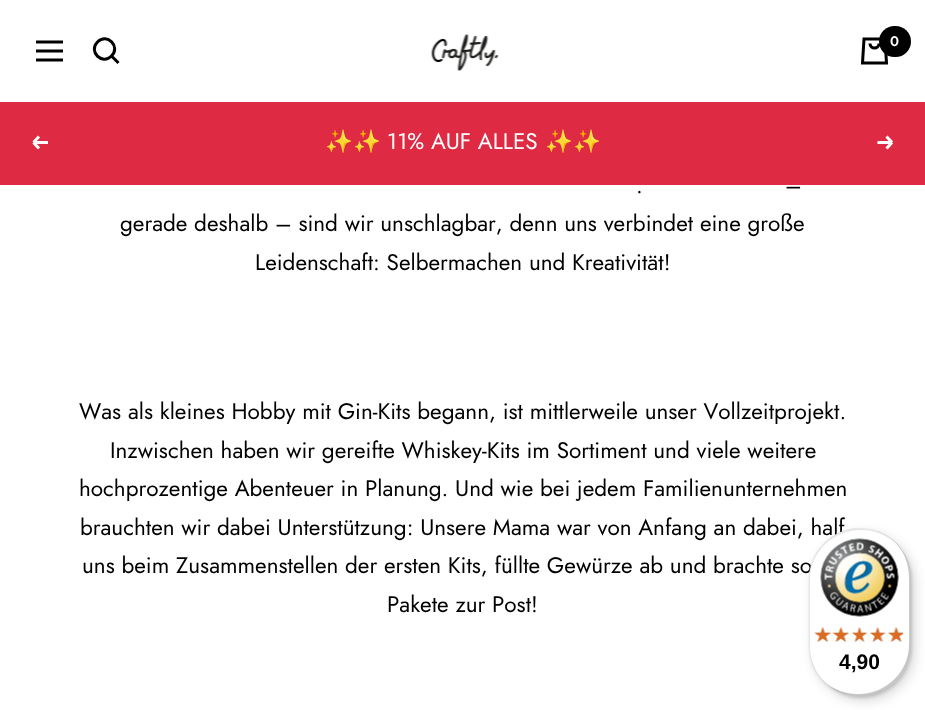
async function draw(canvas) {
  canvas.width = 925
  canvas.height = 710
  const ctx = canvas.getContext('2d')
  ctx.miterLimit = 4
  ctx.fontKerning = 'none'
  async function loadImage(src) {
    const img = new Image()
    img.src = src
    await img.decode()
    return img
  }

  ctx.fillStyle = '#fff'
  ctx.fillRect(0, 0, 925, 710)
  ctx.beginPath()
  ctx.moveTo(36, 42)
  ctx.lineTo(63, 42)
  ctx.moveTo(36, 60)
  ctx.lineTo(63, 60)
  ctx.closePath()
  ctx.moveTo(36, 51)
  ctx.lineTo(63, 51)
  ctx.closePath()
  ctx.strokeStyle = '#000'
  ctx.lineWidth = 3
  ctx.stroke()
  ctx.beginPath()
  ctx.moveTo(111.5, 56)
  ctx.bezierCurveTo(121, 46.5, 107, 32.5, 97.5, 42)
  ctx.bezierCurveTo(88, 51.5, 102, 65.5, 111.5, 56)
  ctx.closePath()
  ctx.moveTo(111.5, 56)
  ctx.lineTo(118.5, 63)
  ctx.stroke()
  ctx.drawImage(await loadImage('image0.png'), 431, 34, 68, 37)
  ctx.beginPath()
  ctx.moveTo(864, 39)
  ctx.lineTo(885, 39)
  ctx.lineTo(886.5, 63)
  ctx.lineTo(862.5, 63)
  ctx.closePath()
  ctx.moveTo(870, 43.5)
  ctx.bezierCurveTo(870, 49.5, 879, 49.5, 879, 43.5)
  ctx.stroke()
  ctx.fillStyle = '#000'
  ctx.beginPath()
  ctx.roundRect(879, 26, 32, 31, 15.5)
  ctx.fill()
  ctx.font = '600 14px Jost'
  ctx.fillStyle = '#fff'
  ctx.fillText('0', 890, 46)
  ctx.fillStyle = '#de2a42'
  ctx.fillRect(0, 102, 925, 83)
  ctx.beginPath()
  ctx.moveTo(48, 142.5)
  ctx.lineTo(33.5, 142.5)
  ctx.moveTo(33.5, 142.5)
  ctx.lineTo(39, 148.5)
  ctx.moveTo(33.5, 142.5)
  ctx.lineTo(39, 136.5)
  ctx.strokeStyle = '#fff'
  ctx.stroke()
  ctx.font = '22.5px Noto Color Emoji'
  ctx.fillStyle = '#fff'
  ctx.fillText('✨✨', 325, 149)
  ctx.font = '22.5px Jost'
  ctx.fillText('11% AUF ALLES', 387, 149)
  ctx.font = '22.5px Noto Color Emoji'
  ctx.fillText('✨✨', 545, 149)
  ctx.beginPath()
  ctx.moveTo(877.5, 142.5)
  ctx.lineTo(892, 142.5)
  ctx.moveTo(892, 142.5)
  ctx.lineTo(886.5, 148.5)
  ctx.moveTo(892, 142.5)
  ctx.lineTo(886.5, 136.5)
  ctx.stroke()
  ctx.font = '22.5px Jost'
  ctx.fillStyle = '#000'
  ctx.fillText('–', 785, 193)
  ctx.fillText('.', 636, 193)
  ctx.fillText('gerade deshalb – sind wir unschlagbar, denn uns verbindet eine große', 120, 231)
  ctx.fillText('Leidenschaft: Selbermachen und Kreativität!', 255, 270)
  ctx.fillText('Was als kleines Hobby mit Gin-Kits begann, ist mittlerweile unser Vollzeitprojekt.', 79, 419)
  ctx.fillText('Inzwischen haben wir gereifte Whiskey-Kits im Sortiment und viele weitere', 110, 458)
  ctx.fillText('hochprozentige Abenteuer in Planung. Und wie bei jedem Familienunternehmen', 79, 496)
  ctx.fillText('brauchten wir dabei Unterstützung: Unsere Mama war von Anfang an dabei, half', 80, 535)
  ctx.fillText('uns beim Zusammenstellen der ersten Kits, füllte Gewürze ab und brachte so', 82, 573)
  ctx.fillText('Pakete zur Post!', 387, 612)
  ctx.fillStyle = '#00000026'
  ctx.filter = 'blur(6px)'
  ctx.beginPath()
  ctx.roundRect(813, 533, 102, 168, 51)
  ctx.fill()
  ctx.filter = 'none'
  ctx.filter = 'blur(1.5px)'
  ctx.beginPath()
  ctx.roundRect(810, 530, 102, 168, 51)
  ctx.fill()
  ctx.filter = 'none'
  ctx.fillStyle = '#fff'
  ctx.beginPath()
  ctx.roundRect(809, 528, 102, 168, 51)
  ctx.fill()
  ctx.fillStyle = '#0000001a'
  ctx.beginPath()
  ctx.moveTo(861, 530)
  ctx.bezierCurveTo(878, 530, 893, 538, 903, 551)
  ctx.bezierCurveTo(894, 537, 878, 528, 860, 528)
  ctx.bezierCurveTo(832, 528, 809, 551, 809, 579)
  ctx.lineTo(809, 645)
  ctx.bezierCurveTo(809, 655, 812, 665, 817, 673)
  ctx.bezierCurveTo(813, 665, 810, 656, 810, 646)
  ctx.lineTo(810, 580)
  ctx.bezierCurveTo(810, 552, 833, 530, 861, 530)
  ctx.closePath()
  ctx.fill()
  ctx.fillStyle = '#00000033'
  ctx.beginPath()
  ctx.moveTo(826, 683)
  ctx.bezierCurveTo(835, 691, 847, 696, 860, 696)
  ctx.bezierCurveTo(888, 696, 911, 673, 911, 645)
  ctx.lineTo(911, 579)
  ctx.bezierCurveTo(911, 563, 904, 549, 893, 540)
  ctx.bezierCurveTo(903, 549, 909, 563, 909, 578)
  ctx.lineTo(909, 644)
  ctx.bezierCurveTo(909, 672, 886, 694, 858, 694)
  ctx.bezierCurveTo(846, 694, 835, 690, 826, 683)
  ctx.closePath()
  ctx.fill()
  ctx.fillStyle = '#32323233'
  ctx.beginPath()
  ctx.moveTo(828, 685)
  ctx.bezierCurveTo(837, 692, 848, 696, 860, 696)
  ctx.bezierCurveTo(888, 696, 911, 673, 911, 645)
  ctx.lineTo(911, 579)
  ctx.bezierCurveTo(911, 564, 904, 550, 893, 540)
  ctx.bezierCurveTo(904, 550, 910, 563, 910, 578)
  ctx.lineTo(910, 644)
  ctx.bezierCurveTo(910, 672, 887, 695, 859, 695)
  ctx.bezierCurveTo(847, 695, 837, 691, 828, 685)
  ctx.closePath()
  ctx.fill()
  ctx.fillStyle = '#ffffff4d'
  ctx.beginPath()
  ctx.moveTo(821, 678)
  ctx.bezierCurveTo(831, 689, 845, 696, 860, 696)
  ctx.bezierCurveTo(888, 696, 911, 673, 911, 645)
  ctx.lineTo(911, 579)
  ctx.bezierCurveTo(911, 564, 904, 550, 893, 540)
  ctx.bezierCurveTo(904, 550, 910, 563, 910, 578)
  ctx.lineTo(910, 644)
  ctx.bezierCurveTo(910, 672, 887, 695, 859, 695)
  ctx.bezierCurveTo(844, 695, 831, 689, 821, 678)
  ctx.closePath()
  ctx.fill()
  ctx.drawImage(await loadImage('image1.png'), 820, 538, 79, 79)
  ctx.drawImage(await loadImage('image2.png'), 814, 627, 17, 15)
  ctx.drawImage(await loadImage('image3.png'), 834, 627, 15, 15)
  ctx.drawImage(await loadImage('image4.png'), 852, 627, 15, 15)
  ctx.drawImage(await loadImage('image5.png'), 870, 627, 17, 15)
  ctx.drawImage(await loadImage('image6.png'), 888, 627, 17, 15)
  ctx.drawImage(await loadImage('image7.png'), 814, 627, 17, 15)
  ctx.drawImage(await loadImage('image8.png'), 832, 627, 17, 15)
  ctx.drawImage(await loadImage('image9.png'), 852, 627, 15, 15)
  ctx.drawImage(await loadImage('image10.png'), 870, 627, 15, 15)
  ctx.drawImage(await loadImage('image11.png'), 888, 627, 15, 15)
  ctx.font = 'bold 21px Liberation Sans'
  ctx.fillStyle = '#000'
  ctx.fillText('4,90', 839, 669)
}

draw(document.querySelector('canvas'))
